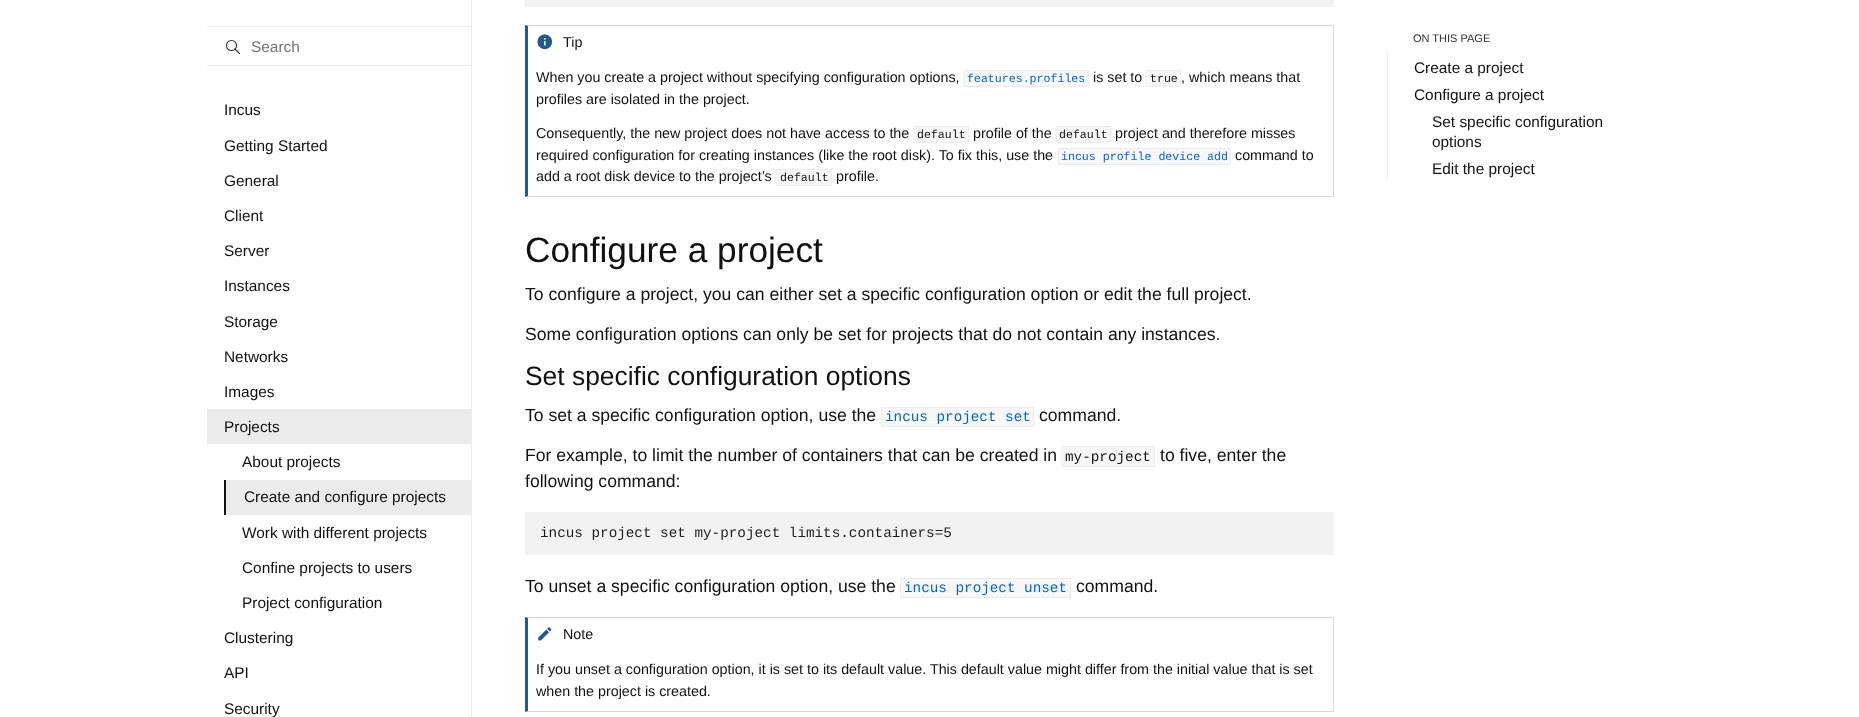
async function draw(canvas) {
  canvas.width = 1859
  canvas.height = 717
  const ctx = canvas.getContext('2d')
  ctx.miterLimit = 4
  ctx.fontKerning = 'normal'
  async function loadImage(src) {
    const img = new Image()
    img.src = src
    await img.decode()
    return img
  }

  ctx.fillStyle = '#fff'
  ctx.fillRect(0, 0, 1859, 717)
  ctx.fillStyle = '#eeebee'
  ctx.fillRect(471, 0, 1, 717)
  ctx.beginPath()
  ctx.arc(231.5, 45.5, 5, 0, 2 * Math.PI)
  ctx.strokeStyle = '#333'
  ctx.lineWidth = 1.1
  ctx.stroke()
  ctx.beginPath()
  ctx.moveTo(239.5, 53.5)
  ctx.lineTo(235, 49)
  ctx.lineCap = 'round'
  ctx.lineJoin = 'round'
  ctx.stroke()
  ctx.fillRect(207, 26, 264, 1)
  ctx.fillRect(207, 65, 264, 1)
  ctx.font = '15.4px Liberation Sans'
  ctx.fillStyle = '#757575'
  ctx.fillText('Search', 251, 52)
  ctx.fillStyle = '#111'
  ctx.fillText('Incus', 224, 115)
  ctx.fillText('Getting Started', 224, 151)
  ctx.fillText('General', 224, 186)
  ctx.fillText('Client', 224, 221)
  ctx.fillText('Server', 224, 256)
  ctx.fillText('Instances', 224, 291)
  ctx.fillText('Storage', 224, 327)
  ctx.fillText('Networks', 224, 362)
  ctx.fillText('Images', 224, 397)
  ctx.fillStyle = '#ebebeb'
  ctx.fillRect(207, 409, 264, 35)
  ctx.fillStyle = '#111'
  ctx.fillText('Projects', 224, 432)
  ctx.fillText('About projects', 242, 467)
  ctx.fillRect(224, 480, 2, 35)
  ctx.fillStyle = '#ebebeb'
  ctx.fillRect(226, 480, 245, 35)
  ctx.fillStyle = '#111'
  ctx.fillText('Create and configure projects', 244, 502)
  ctx.fillText('Work with different projects', 242, 538)
  ctx.fillText('Confine projects to users', 242, 573)
  ctx.fillText('Project configuration', 242, 608)
  ctx.fillText('Clustering', 224, 643)
  ctx.fillText('API', 224, 678)
  ctx.fillText('Security', 224, 714)
  ctx.fillStyle = '#f2f2f2'
  ctx.fillRect(525, 0, 809, 7)
  ctx.fillStyle = '#d9d9d9'
  ctx.beginPath()
  ctx.moveTo(525, 25)
  ctx.lineTo(1334, 25)
  ctx.lineTo(1333, 26)
  ctx.lineTo(528, 26)
  ctx.closePath()
  ctx.fill()
  ctx.fillRect(1333, 25, 1, 172)
  ctx.beginPath()
  ctx.moveTo(1334, 197)
  ctx.lineTo(525, 197)
  ctx.lineTo(528, 196)
  ctx.lineTo(1333, 196)
  ctx.closePath()
  ctx.fill()
  ctx.fillStyle = '#24598f'
  ctx.beginPath()
  ctx.moveTo(525, 197)
  ctx.lineTo(525, 25)
  ctx.lineTo(528, 26)
  ctx.lineTo(528, 196)
  ctx.closePath()
  ctx.fill()
  ctx.drawImage(await loadImage('image0.png'), 537, 34, 16, 16)
  ctx.font = '14.3px Liberation Sans'
  ctx.fillStyle = '#111'
  ctx.fillText('Tip', 563, 47)
  ctx.fillText('When you create a project without specifying configuration options,', 536, 82)
  ctx.fillStyle = '#f7f7f7'
  ctx.beginPath()
  ctx.rect(964.5, 70.5, 124, 16)
  ctx.fill()
  ctx.strokeStyle = '#eeebee'
  ctx.lineWidth = 1
  ctx.lineJoin = 'miter'
  ctx.stroke()
  ctx.fillStyle = '#fff'
  ctx.fillRect(967, 83, 119, 1)
  ctx.font = '11.6px Liberation Mono'
  ctx.fillStyle = '#06c'
  ctx.fillText('features.profiles', 967, 82)
  ctx.font = '14.3px Liberation Sans'
  ctx.fillStyle = '#111'
  ctx.fillText('is set to', 1093, 82)
  ctx.fillStyle = '#f7f7f7'
  ctx.beginPath()
  ctx.rect(1146.5, 70.5, 34, 16)
  ctx.fill()
  ctx.stroke()
  ctx.font = '11.6px Liberation Mono'
  ctx.fillStyle = '#111'
  ctx.fillText('true', 1150, 82)
  ctx.font = '14.3px Liberation Sans'
  ctx.fillText(', which means that', 1181, 82)
  ctx.fillText('profiles are isolated in the project.', 536, 104)
  ctx.fillText('Consequently, the new project does not have access to the', 536, 138)
  ctx.fillStyle = '#f7f7f7'
  ctx.beginPath()
  ctx.rect(914.5, 126.5, 54, 16)
  ctx.fill()
  ctx.stroke()
  ctx.font = '11.6px Liberation Mono'
  ctx.fillStyle = '#111'
  ctx.fillText('default', 917, 138)
  ctx.font = '14.3px Liberation Sans'
  ctx.fillText('profile of the', 973, 138)
  ctx.fillStyle = '#f7f7f7'
  ctx.beginPath()
  ctx.rect(1056.5, 126.5, 54, 16)
  ctx.fill()
  ctx.stroke()
  ctx.font = '11.6px Liberation Mono'
  ctx.fillStyle = '#111'
  ctx.fillText('default', 1059, 138)
  ctx.font = '14.3px Liberation Sans'
  ctx.fillText('project and therefore misses', 1115, 138)
  ctx.fillText('required configuration for creating instances (like the root disk). To fix this, use the', 536, 160)
  ctx.fillStyle = '#f7f7f7'
  ctx.fillRect(1059, 149, 37, 15)
  ctx.fillRect(1096, 148, 7, 17)
  ctx.fillRect(1103, 149, 48, 15)
  ctx.fillRect(1151, 148, 7, 17)
  ctx.fillRect(1158, 149, 42, 15)
  ctx.fillRect(1200, 148, 7, 17)
  ctx.fillRect(1207, 149, 23, 15)
  ctx.fillStyle = '#fff'
  ctx.fillRect(1061, 161, 167, 1)
  ctx.font = '11.6px Liberation Mono'
  ctx.fillStyle = '#06c'
  ctx.fillText('incus profile device add', 1061, 160)
  ctx.fillStyle = '#eeebee'
  ctx.fillRect(1058, 148, 38, 1)
  ctx.fillRect(1058, 164, 38, 1)
  ctx.fillRect(1058, 148, 1, 17)
  ctx.fillRect(1096, 148, 55, 1)
  ctx.fillRect(1096, 164, 55, 1)
  ctx.fillRect(1151, 148, 49, 1)
  ctx.fillRect(1151, 164, 49, 1)
  ctx.fillRect(1200, 148, 31, 1)
  ctx.fillRect(1200, 164, 7, 1)
  ctx.fillRect(1230, 148, 1, 17)
  ctx.fillRect(1207, 164, 24, 1)
  ctx.font = '14.3px Liberation Sans'
  ctx.fillStyle = '#111'
  ctx.fillText('command to', 1235, 160)
  ctx.fillText('add a root disk device to the project’s', 536, 181)
  ctx.fillStyle = '#f7f7f7'
  ctx.beginPath()
  ctx.rect(776.5, 169.5, 55, 16)
  ctx.fill()
  ctx.stroke()
  ctx.font = '11.6px Liberation Mono'
  ctx.fillStyle = '#111'
  ctx.fillText('default', 780, 181)
  ctx.font = '14.3px Liberation Sans'
  ctx.fillText('profile.', 836, 181)
  ctx.font = '35.25px Liberation Sans'
  ctx.fillText('Configure a project', 525, 262)
  ctx.font = '17.6px Liberation Sans'
  ctx.fillText('To configure a project, you can either set a specific configuration option or edit the full project.', 525, 300)
  ctx.fillText('Some configuration options can only be set for projects that do not contain any instances.', 525, 340)
  ctx.font = '26.4px Liberation Sans'
  ctx.fillText('Set specific configuration options', 525, 385)
  ctx.font = '17.6px Liberation Sans'
  ctx.fillText('To set a specific configuration option, use the', 525, 421)
  ctx.fillStyle = '#f7f7f7'
  ctx.fillRect(882, 408, 151, 18)
  ctx.fillStyle = '#fff'
  ctx.fillRect(885, 422, 145, 1)
  ctx.font = '14.3px Liberation Mono'
  ctx.fillStyle = '#06c'
  ctx.fillText('incus project set', 885, 421)
  ctx.fillStyle = '#eeebee'
  ctx.fillRect(881, 407, 153, 1)
  ctx.fillRect(881, 426, 124, 1)
  ctx.fillRect(881, 407, 1, 20)
  ctx.fillRect(1033, 407, 1, 20)
  ctx.fillRect(1005, 426, 29, 1)
  ctx.font = '17.6px Liberation Sans'
  ctx.fillStyle = '#111'
  ctx.fillText('command.', 1039, 421)
  ctx.fillText('For example, to limit the number of containers that can be created in', 525, 461)
  ctx.fillStyle = '#f7f7f7'
  ctx.beginPath()
  ctx.rect(1062.5, 446.5, 92, 20)
  ctx.fill()
  ctx.stroke()
  ctx.font = '14.3px Liberation Mono'
  ctx.fillStyle = '#111'
  ctx.fillText('my-project', 1065, 461)
  ctx.font = '17.6px Liberation Sans'
  ctx.fillText('to five, enter the', 1160, 461)
  ctx.fillText('following command:', 525, 487)
  ctx.fillStyle = '#f2f2f2'
  ctx.fillRect(525, 512, 809, 43)
  ctx.font = '14.3px Liberation Mono'
  ctx.fillStyle = '#1e1e1e'
  ctx.fillText('incus project set my-project limits.containers=5', 540, 537)
  ctx.font = '17.6px Liberation Sans'
  ctx.fillStyle = '#111'
  ctx.fillText('To unset a specific configuration option, use the', 525, 592)
  ctx.fillStyle = '#f7f7f7'
  ctx.fillRect(901, 579, 115, 18)
  ctx.fillRect(1016, 578, 8, 20)
  ctx.fillRect(1024, 579, 46, 18)
  ctx.fillStyle = '#fff'
  ctx.fillRect(904, 593, 163, 1)
  ctx.font = '14.3px Liberation Mono'
  ctx.fillStyle = '#06c'
  ctx.fillText('incus project unset', 904, 592)
  ctx.fillStyle = '#eeebee'
  ctx.fillRect(900, 578, 116, 1)
  ctx.fillRect(900, 597, 116, 1)
  ctx.fillRect(900, 578, 1, 20)
  ctx.fillRect(1016, 578, 55, 1)
  ctx.fillRect(1016, 597, 8, 1)
  ctx.fillRect(1070, 578, 1, 20)
  ctx.fillRect(1024, 597, 47, 1)
  ctx.font = '17.6px Liberation Sans'
  ctx.fillStyle = '#111'
  ctx.fillText('command.', 1076, 592)
  ctx.fillStyle = '#d9d9d9'
  ctx.beginPath()
  ctx.moveTo(525, 617)
  ctx.lineTo(1334, 617)
  ctx.lineTo(1333, 618)
  ctx.lineTo(528, 618)
  ctx.closePath()
  ctx.fill()
  ctx.fillRect(1333, 617, 1, 95)
  ctx.beginPath()
  ctx.moveTo(1334, 712)
  ctx.lineTo(525, 712)
  ctx.lineTo(528, 711)
  ctx.lineTo(1333, 711)
  ctx.closePath()
  ctx.fill()
  ctx.fillStyle = '#24598f'
  ctx.beginPath()
  ctx.moveTo(525, 712)
  ctx.lineTo(525, 617)
  ctx.lineTo(528, 618)
  ctx.lineTo(528, 711)
  ctx.closePath()
  ctx.fill()
  ctx.drawImage(await loadImage('image1.png'), 538, 627, 14, 14)
  ctx.font = '14.3px Liberation Sans'
  ctx.fillStyle = '#111'
  ctx.fillText('Note', 563, 639)
  ctx.fillText('If you unset a configuration option, it is set to its default value. This default value might differ from the initial value that is set', 536, 674)
  ctx.fillText('when the project is created.', 536, 696)
  ctx.font = '11px Liberation Sans'
  ctx.fillStyle = '#333'
  ctx.fillText('ON THIS PAGE', 1413, 42)
  ctx.fillStyle = '#eeebee'
  ctx.fillRect(1387, 51, 1, 128)
  ctx.font = '15.4px Liberation Sans'
  ctx.fillStyle = '#111'
  ctx.fillText('Create a project', 1414, 73)
  ctx.fillText('Configure a project', 1414, 100)
  ctx.fillText('Set specific configuration', 1432, 127)
  ctx.fillText('options', 1432, 147)
  ctx.fillText('Edit the project', 1432, 174)
}

draw(document.querySelector('canvas'))
